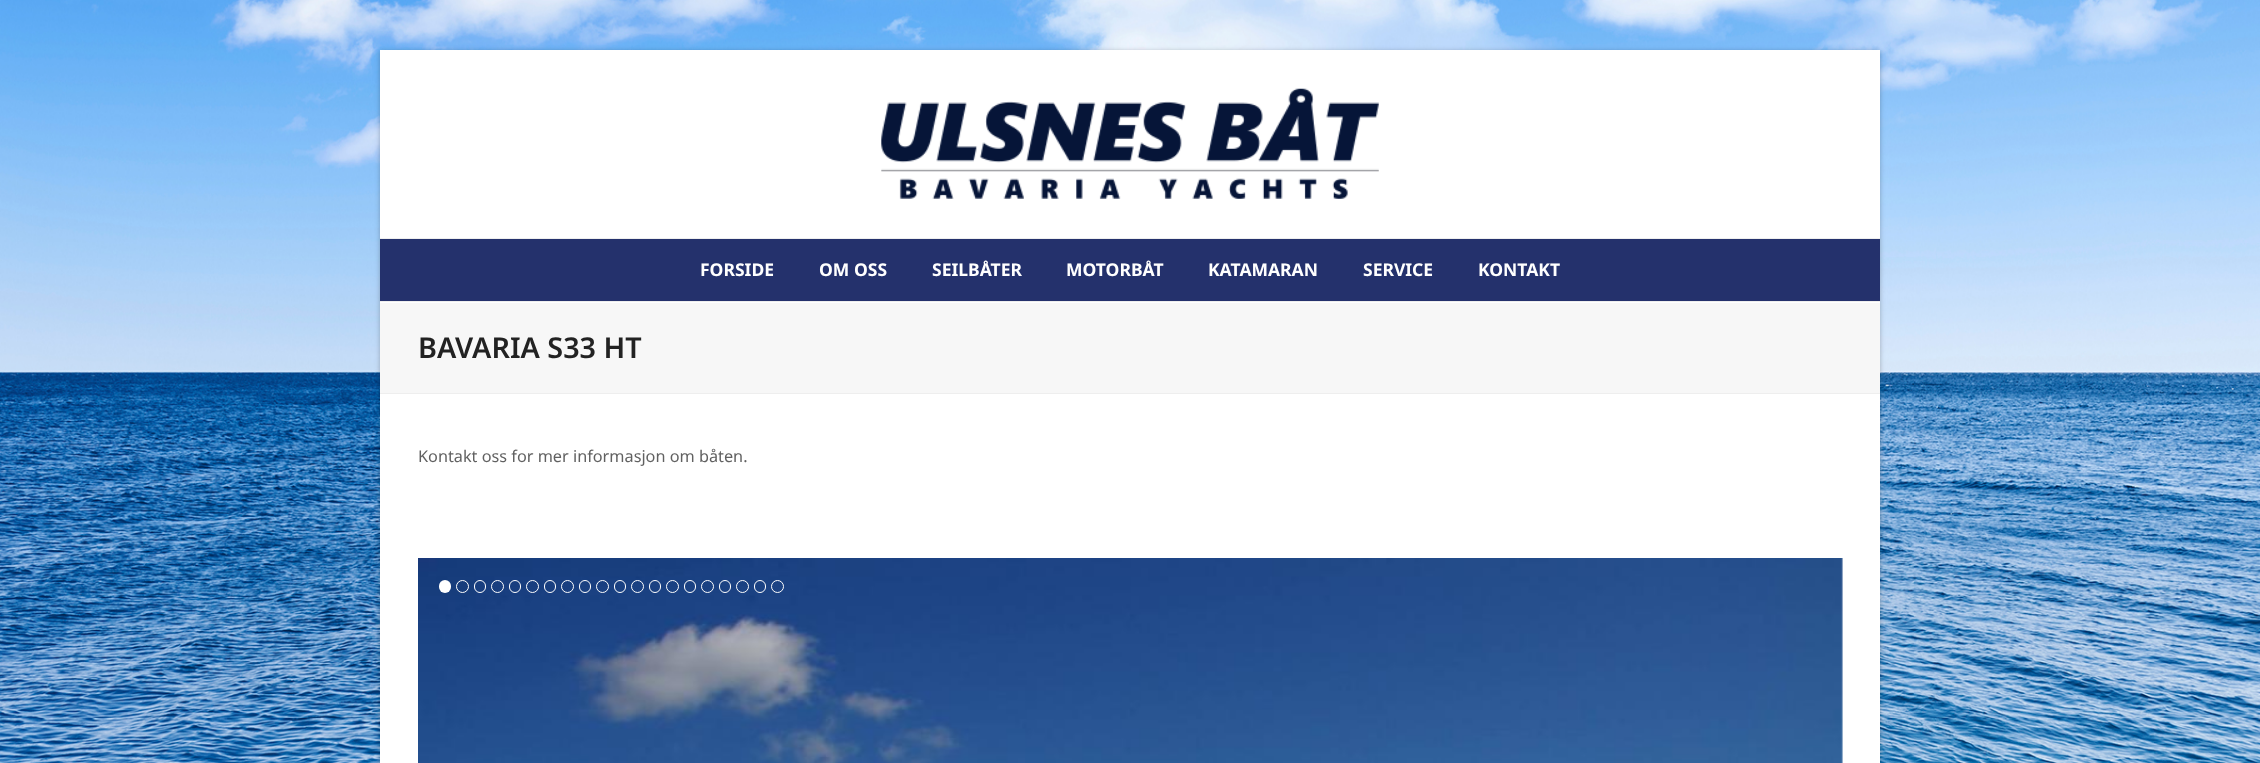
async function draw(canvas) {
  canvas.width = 2260
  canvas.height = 763
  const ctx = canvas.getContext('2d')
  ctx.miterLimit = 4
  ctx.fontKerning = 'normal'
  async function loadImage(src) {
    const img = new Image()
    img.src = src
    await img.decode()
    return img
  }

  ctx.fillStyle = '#fff'
  ctx.fillRect(0, 0, 2260, 763)
  ctx.drawImage(await loadImage('image0.png'), 0, 0, 2260, 763)
  ctx.fillStyle = '#00000040'
  ctx.filter = 'blur(2.5px)'
  ctx.beginPath()
  ctx.rect(380, 51, 1500, 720)
  ctx.fill()
  ctx.filter = 'none'
  ctx.fillStyle = '#fff'
  ctx.fillRect(380, 50, 1500, 713)
  ctx.drawImage(await loadImage('image1.png'), 881, 88, 498, 111)
  ctx.fillStyle = '#24316c'
  ctx.fillRect(380, 239, 1500, 62)
  ctx.fillStyle = '#eee'
  ctx.fillRect(380, 238, 1500, 1)
  ctx.font = 'bold 17.5px Noto Sans'
  ctx.fillStyle = '#fff'
  ctx.fillText('FORSIDE', 700, 276)
  ctx.fillText('OM OSS', 819, 276)
  ctx.fillText('SEILBÅTER', 932, 276)
  ctx.fillText('MOTORBÅT', 1066, 276)
  ctx.fillText('KATAMARAN', 1208, 276)
  ctx.fillText('SERVICE', 1363, 276)
  ctx.fillText('KONTAKT', 1478, 276)
  ctx.fillStyle = '#f7f7f7'
  ctx.fillRect(380, 303, 1500, 90)
  ctx.fillStyle = '#eee'
  ctx.fillRect(380, 301, 1500, 1)
  ctx.fillRect(380, 393, 1500, 1)
  ctx.font = '600 28.75px Noto Sans'
  ctx.fillStyle = '#222'
  ctx.fillText('BAVARIA S33 HT', 418, 358)
  ctx.font = '16.25px Noto Sans'
  ctx.fillStyle = '#616161'
  ctx.fillText('Kontakt oss for mer informasjon om båten.', 418, 462)
  ctx.drawImage(await loadImage('image2.png'), 418, 558, 1425, 205)
  ctx.fillStyle = '#fff'
  ctx.beginPath()
  ctx.roundRect(439, 580, 12, 13, 6)
  ctx.fill()
  ctx.beginPath()
  ctx.arc(462.5, 586.5, 6, 0, 2 * Math.PI)
  ctx.strokeStyle = '#fff'
  ctx.stroke()
  ctx.beginPath()
  ctx.roundRect(474.5, 580.5, 11, 12, 5.5)
  ctx.stroke()
  ctx.beginPath()
  ctx.arc(497.5, 586.5, 6, 0, 2 * Math.PI)
  ctx.stroke()
  ctx.beginPath()
  ctx.roundRect(509.5, 580.5, 11, 12, 5.5)
  ctx.stroke()
  ctx.beginPath()
  ctx.arc(532.5, 586.5, 6, 0, 2 * Math.PI)
  ctx.stroke()
  ctx.beginPath()
  ctx.roundRect(544.5, 580.5, 11, 12, 5.5)
  ctx.stroke()
  ctx.beginPath()
  ctx.arc(567.5, 586.5, 6, 0, 2 * Math.PI)
  ctx.stroke()
  ctx.beginPath()
  ctx.roundRect(579.5, 580.5, 11, 12, 5.5)
  ctx.stroke()
  ctx.beginPath()
  ctx.arc(602.5, 586.5, 6, 0, 2 * Math.PI)
  ctx.stroke()
  ctx.beginPath()
  ctx.roundRect(614.5, 580.5, 11, 12, 5.5)
  ctx.stroke()
  ctx.beginPath()
  ctx.arc(637.5, 586.5, 6, 0, 2 * Math.PI)
  ctx.stroke()
  ctx.beginPath()
  ctx.roundRect(649.5, 580.5, 11, 12, 5.5)
  ctx.stroke()
  ctx.beginPath()
  ctx.arc(672.5, 586.5, 6, 0, 2 * Math.PI)
  ctx.stroke()
  ctx.beginPath()
  ctx.roundRect(684.5, 580.5, 11, 12, 5.5)
  ctx.stroke()
  ctx.beginPath()
  ctx.arc(707.5, 586.5, 6, 0, 2 * Math.PI)
  ctx.stroke()
  ctx.beginPath()
  ctx.roundRect(719.5, 580.5, 11, 12, 5.5)
  ctx.stroke()
  ctx.beginPath()
  ctx.arc(742.5, 586.5, 6, 0, 2 * Math.PI)
  ctx.stroke()
  ctx.beginPath()
  ctx.roundRect(754.5, 580.5, 11, 12, 5.5)
  ctx.stroke()
  ctx.beginPath()
  ctx.arc(777.5, 586.5, 6, 0, 2 * Math.PI)
  ctx.stroke()
}

draw(document.querySelector('canvas'))
